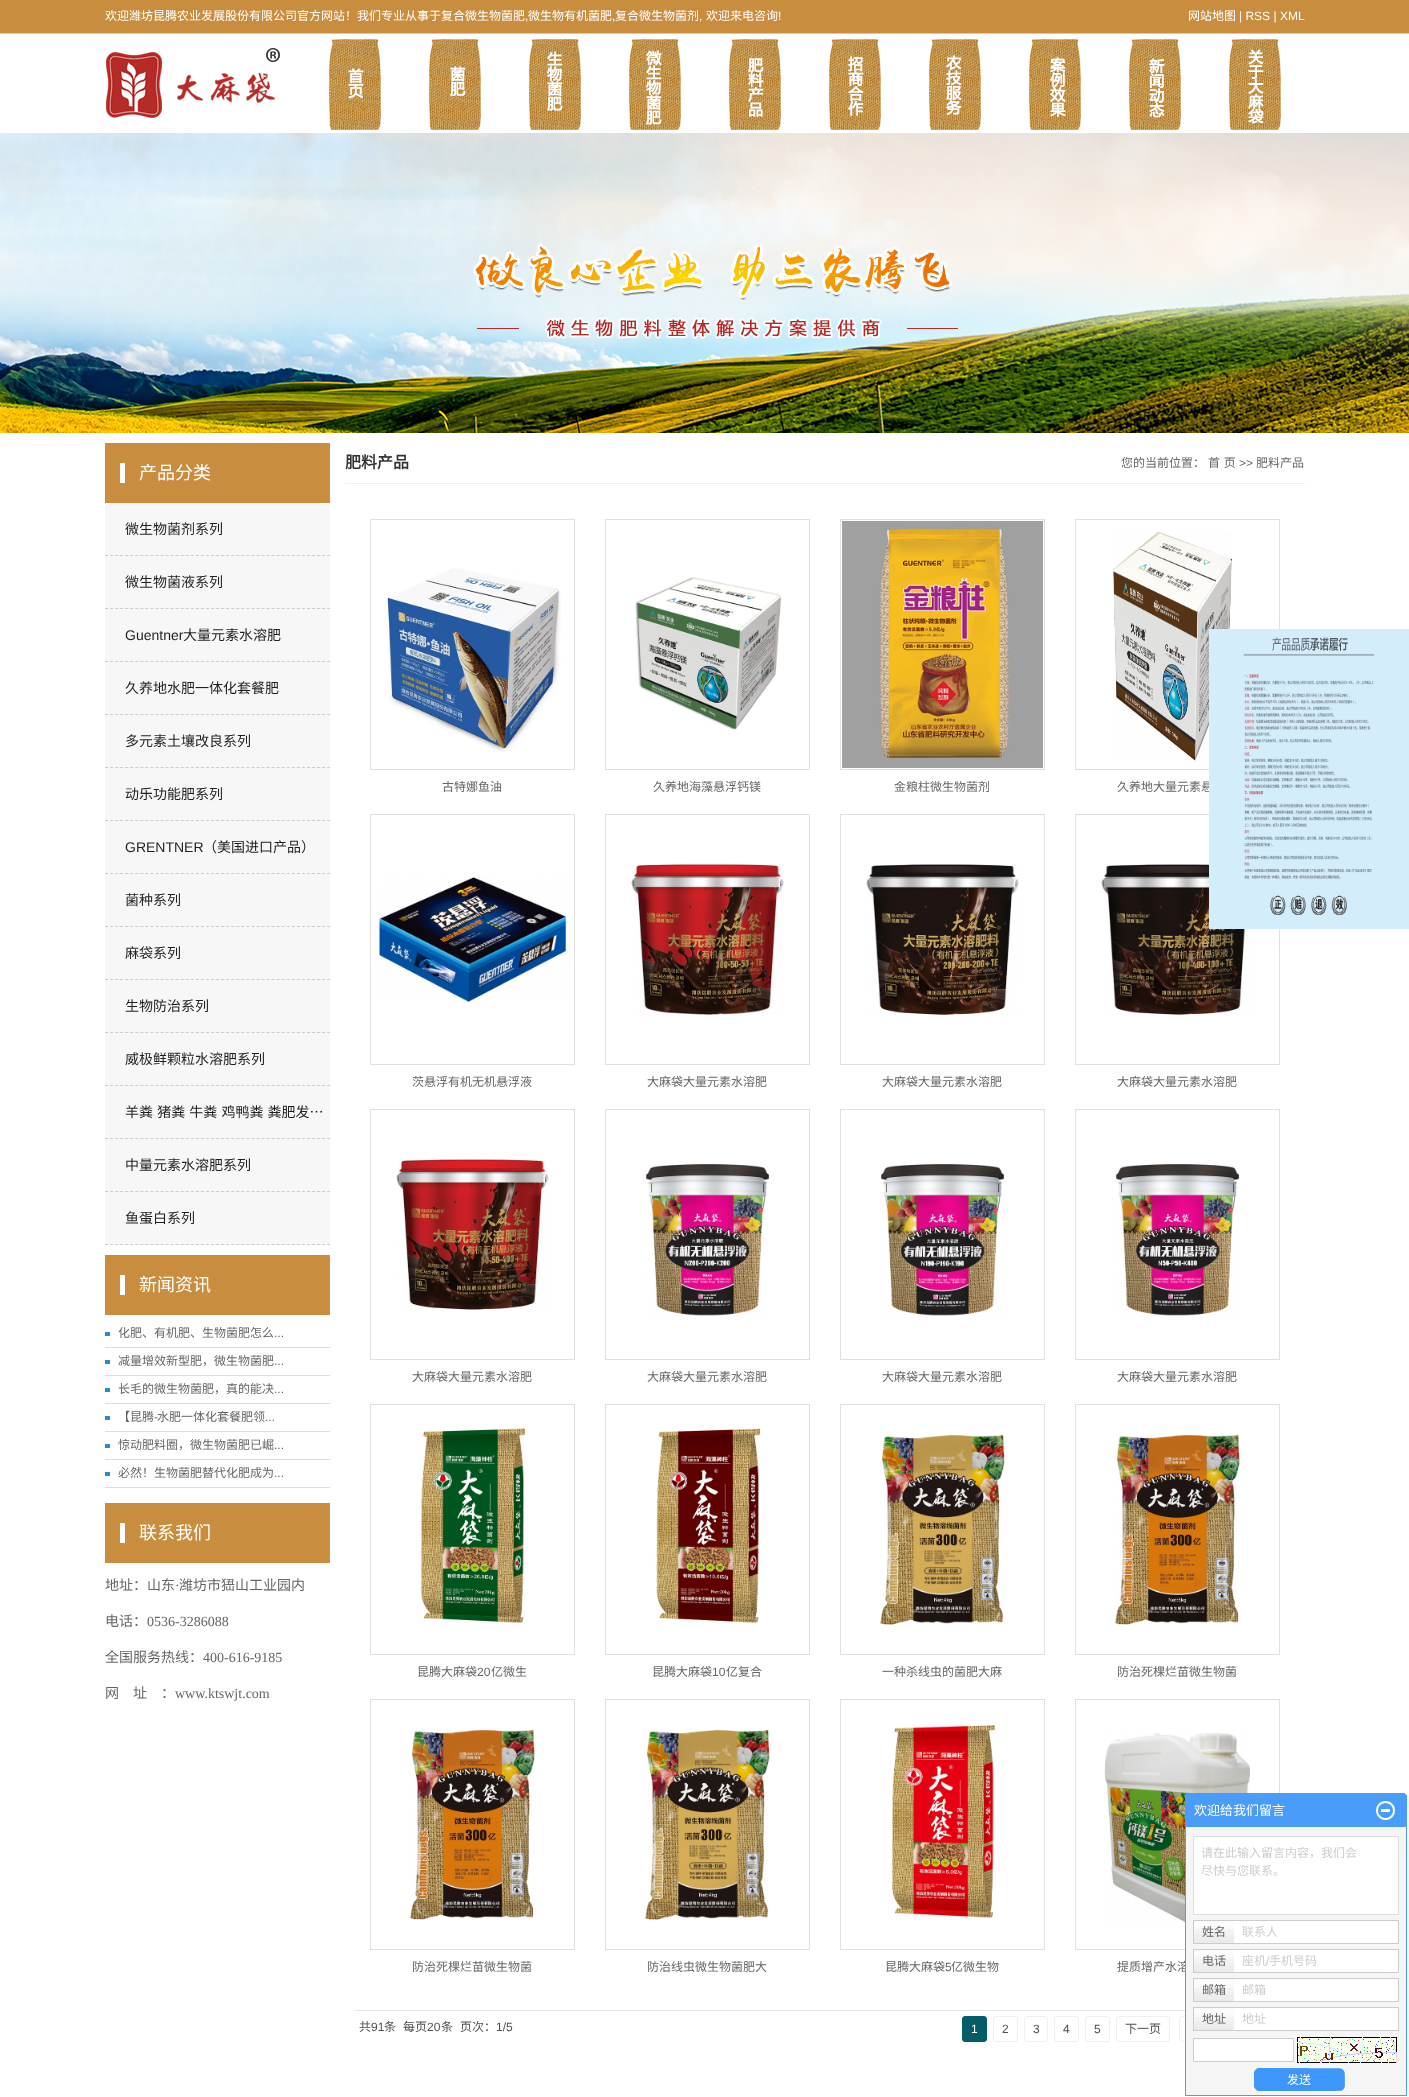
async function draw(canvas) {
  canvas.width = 1409
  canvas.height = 2097
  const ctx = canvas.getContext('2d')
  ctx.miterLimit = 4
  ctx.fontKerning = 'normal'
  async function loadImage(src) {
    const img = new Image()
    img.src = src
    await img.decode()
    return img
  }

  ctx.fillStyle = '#fff'
  ctx.fillRect(0, 0, 1409, 2097)
  ctx.fillStyle = '#c88d3f'
  ctx.fillRect(0, 0, 1409, 33)
  ctx.fillStyle = '#cecece'
  ctx.fillRect(0, 33, 1409, 1)
  ctx.font = '12px Noto Sans CJK SC'
  ctx.fillStyle = '#fff'
  ctx.fillText('欢迎潍坊昆腾农业发展股份有限公司官方网站！我们专业从事于复合微生物菌肥', 105, 20)
  ctx.font = '12px Liberation Sans'
  ctx.fillText(',', 525, 20)
  ctx.font = '12px Noto Sans CJK SC'
  ctx.fillText('微生物有机菌肥', 528, 20)
  ctx.font = '12px Liberation Sans'
  ctx.fillText(',', 612, 20)
  ctx.font = '12px Noto Sans CJK SC'
  ctx.fillText('复合微生物菌剂', 615, 20)
  ctx.font = '12px Liberation Sans'
  ctx.fillText(',', 699, 20)
  ctx.font = '12px Noto Sans CJK SC'
  ctx.fillText('欢迎来电咨询', 706, 20)
  ctx.font = '12px Liberation Sans'
  ctx.fillText('!', 778, 20)
  ctx.font = '12px Noto Sans CJK SC'
  ctx.fillText('网站地图', 1188, 20)
  ctx.font = '12px Liberation Sans'
  ctx.fillText('| RSS | XML', 1239, 20)
  ctx.drawImage(await loadImage('image0.png'), 106, 48, 174, 70)
  ctx.drawImage(await loadImage('image1.png'), 329, 39, 52, 91)
  ctx.drawImage(await loadImage('image2.png'), 429, 39, 52, 91)
  ctx.drawImage(await loadImage('image3.png'), 529, 39, 52, 91)
  ctx.drawImage(await loadImage('image4.png'), 629, 39, 52, 91)
  ctx.drawImage(await loadImage('image5.png'), 729, 39, 52, 91)
  ctx.drawImage(await loadImage('image6.png'), 829, 39, 52, 91)
  ctx.drawImage(await loadImage('image7.png'), 929, 39, 52, 91)
  ctx.drawImage(await loadImage('image8.png'), 1029, 39, 52, 91)
  ctx.drawImage(await loadImage('image9.png'), 1129, 39, 52, 91)
  ctx.drawImage(await loadImage('image10.png'), 1229, 39, 52, 91)
  ctx.drawImage(await loadImage('image11.png'), 0, 133, 1409, 300)
  ctx.fillStyle = '#c88d3f'
  ctx.fillRect(105, 443, 225, 60)
  ctx.fillStyle = '#fff'
  ctx.fillRect(120, 463, 5, 20)
  ctx.font = '18px Noto Sans CJK SC'
  ctx.fillText('产品分类', 139, 479)
  ctx.fillStyle = '#f7f7f7'
  ctx.fillRect(105, 503, 225, 742)
  ctx.beginPath()
  ctx.moveTo(105, 555.5)
  ctx.lineTo(330, 555.5)
  ctx.strokeStyle = '#ccc'
  ctx.setLineDash([3, 2.05])
  ctx.stroke()
  ctx.font = '14px Noto Sans CJK SC'
  ctx.fillStyle = '#1f1f1f'
  ctx.fillText('微生物菌剂系列', 125, 534)
  ctx.beginPath()
  ctx.moveTo(105, 608.5)
  ctx.lineTo(330, 608.5)
  ctx.stroke()
  ctx.fillText('微生物菌液系列', 125, 587)
  ctx.beginPath()
  ctx.moveTo(105, 661.5)
  ctx.lineTo(330, 661.5)
  ctx.stroke()
  ctx.font = '14px Liberation Sans'
  ctx.fillText('Guentner', 125, 640)
  ctx.font = '14px Noto Sans CJK SC'
  ctx.fillText('大量元素水溶肥', 183, 640)
  ctx.beginPath()
  ctx.moveTo(105, 714.5)
  ctx.lineTo(330, 714.5)
  ctx.stroke()
  ctx.fillText('久养地水肥一体化套餐肥', 125, 693)
  ctx.beginPath()
  ctx.moveTo(105, 767.5)
  ctx.lineTo(330, 767.5)
  ctx.stroke()
  ctx.fillText('多元素土壤改良系列', 125, 746)
  ctx.beginPath()
  ctx.moveTo(105, 820.5)
  ctx.lineTo(330, 820.5)
  ctx.stroke()
  ctx.fillText('动乐功能肥系列', 125, 799)
  ctx.beginPath()
  ctx.moveTo(105, 873.5)
  ctx.lineTo(330, 873.5)
  ctx.stroke()
  ctx.font = '14px Liberation Sans'
  ctx.fillText('GRENTNER', 125, 852)
  ctx.font = '14px Noto Sans CJK SC'
  ctx.fillText('（美国进口产品）', 203, 852)
  ctx.beginPath()
  ctx.moveTo(105, 926.5)
  ctx.lineTo(330, 926.5)
  ctx.stroke()
  ctx.fillText('菌种系列', 125, 905)
  ctx.beginPath()
  ctx.moveTo(105, 979.5)
  ctx.lineTo(330, 979.5)
  ctx.stroke()
  ctx.fillText('麻袋系列', 125, 958)
  ctx.beginPath()
  ctx.moveTo(105, 1032.5)
  ctx.lineTo(330, 1032.5)
  ctx.stroke()
  ctx.fillText('生物防治系列', 125, 1011)
  ctx.beginPath()
  ctx.moveTo(105, 1085.5)
  ctx.lineTo(330, 1085.5)
  ctx.stroke()
  ctx.fillText('威极鲜颗粒水溶肥系列', 125, 1064)
  ctx.beginPath()
  ctx.moveTo(105, 1138.5)
  ctx.lineTo(330, 1138.5)
  ctx.stroke()
  ctx.wordSpacing = '1px'
  ctx.fillText('羊粪 猪粪 牛粪 鸡鸭粪 粪肥发…', 125, 1117)
  ctx.beginPath()
  ctx.moveTo(105, 1191.5)
  ctx.lineTo(330, 1191.5)
  ctx.stroke()
  ctx.wordSpacing = '0px'
  ctx.fillText('中量元素水溶肥系列', 125, 1170)
  ctx.beginPath()
  ctx.moveTo(105, 1244.5)
  ctx.lineTo(330, 1244.5)
  ctx.stroke()
  ctx.fillText('鱼蛋白系列', 125, 1223)
  ctx.fillStyle = '#c88d3f'
  ctx.fillRect(105, 1255, 225, 60)
  ctx.fillStyle = '#fff'
  ctx.fillRect(120, 1275, 5, 20)
  ctx.font = '18px Noto Sans CJK SC'
  ctx.fillText('新闻资讯', 139, 1291)
  ctx.drawImage(await loadImage('image12.png'), 105, 1332, 5, 4)
  ctx.fillStyle = '#ddd'
  ctx.fillRect(105, 1347, 225, 1)
  ctx.font = '12px Noto Sans CJK SC'
  ctx.fillStyle = '#666'
  ctx.fillText('化肥、有机肥、生物菌肥怎么', 118, 1337)
  ctx.font = '12px Liberation Sans'
  ctx.fillText('...', 274, 1337)
  ctx.drawImage(await loadImage('image12.png'), 105, 1360, 5, 4)
  ctx.fillStyle = '#ddd'
  ctx.fillRect(105, 1375, 225, 1)
  ctx.font = '12px Noto Sans CJK SC'
  ctx.fillStyle = '#666'
  ctx.fillText('减量增效新型肥，微生物菌肥', 118, 1365)
  ctx.font = '12px Liberation Sans'
  ctx.fillText('...', 274, 1365)
  ctx.drawImage(await loadImage('image12.png'), 105, 1388, 5, 4)
  ctx.fillStyle = '#ddd'
  ctx.fillRect(105, 1403, 225, 1)
  ctx.font = '12px Noto Sans CJK SC'
  ctx.fillStyle = '#666'
  ctx.fillText('长毛的微生物菌肥，真的能决', 118, 1393)
  ctx.font = '12px Liberation Sans'
  ctx.fillText('...', 274, 1393)
  ctx.drawImage(await loadImage('image12.png'), 105, 1416, 5, 4)
  ctx.fillStyle = '#ddd'
  ctx.fillRect(105, 1431, 225, 1)
  ctx.font = '12px Noto Sans CJK SC'
  ctx.fillStyle = '#666'
  ctx.fillText('【昆腾', 118, 1421)
  ctx.font = '12px Liberation Sans'
  ctx.fillText('-', 154, 1421)
  ctx.font = '12px Noto Sans CJK SC'
  ctx.fillText('水肥一体化套餐肥领', 157, 1421)
  ctx.font = '12px Liberation Sans'
  ctx.fillText('...', 265, 1421)
  ctx.drawImage(await loadImage('image12.png'), 105, 1444, 5, 4)
  ctx.fillStyle = '#ddd'
  ctx.fillRect(105, 1459, 225, 1)
  ctx.font = '12px Noto Sans CJK SC'
  ctx.fillStyle = '#666'
  ctx.fillText('惊动肥料圈，微生物菌肥已崛', 118, 1449)
  ctx.font = '12px Liberation Sans'
  ctx.fillText('...', 274, 1449)
  ctx.drawImage(await loadImage('image12.png'), 105, 1472, 5, 4)
  ctx.fillStyle = '#ddd'
  ctx.fillRect(105, 1487, 225, 1)
  ctx.font = '12px Noto Sans CJK SC'
  ctx.fillStyle = '#666'
  ctx.fillText('必然！生物菌肥替代化肥成为', 118, 1477)
  ctx.font = '12px Liberation Sans'
  ctx.fillText('...', 274, 1477)
  ctx.fillStyle = '#c88d3f'
  ctx.fillRect(105, 1503, 225, 60)
  ctx.fillStyle = '#fff'
  ctx.fillRect(120, 1523, 5, 20)
  ctx.font = '18px Noto Sans CJK SC'
  ctx.fillText('联系我们', 139, 1539)
  ctx.font = '14px Noto Sans CJK SC'
  ctx.fillStyle = '#666'
  ctx.fillText('地址：山东', 105, 1590)
  ctx.font = '14px Liberation Serif'
  ctx.fillText('·', 175, 1590)
  ctx.font = '14px Noto Sans CJK SC'
  ctx.fillText('潍坊市峱山工业园内', 179, 1590)
  ctx.fillText('电话：', 105, 1626)
  ctx.font = '14px Liberation Serif'
  ctx.fillText('0536-3286088', 147, 1626)
  ctx.font = '14px Noto Sans CJK SC'
  ctx.fillText('全国服务热线：', 105, 1662)
  ctx.font = '14px Liberation Serif'
  ctx.fillText('400-616-9185', 203, 1662)
  ctx.font = '14px Noto Sans CJK SC'
  ctx.fillText('网', 105, 1698)
  ctx.fillText('址', 133, 1698)
  ctx.fillText('：', 161, 1698)
  ctx.font = '14px Liberation Serif'
  ctx.fillText('www.ktswjt.com', 175, 1698)
  ctx.fillStyle = '#eee'
  ctx.fillRect(345, 483, 960, 1)
  ctx.font = 'bold 16px Noto Sans CJK SC'
  ctx.fillStyle = '#333'
  ctx.fillText('肥料产品', 345, 468)
  ctx.font = '12px Noto Sans CJK SC'
  ctx.fillStyle = '#666'
  ctx.fillText('您的当前位置：', 1121, 467)
  ctx.wordSpacing = '1px'
  ctx.fillText('首 页', 1208, 467)
  ctx.wordSpacing = '0px'
  ctx.font = '12px Liberation Sans'
  ctx.fillText('>>', 1239, 467)
  ctx.font = '12px Noto Sans CJK SC'
  ctx.fillText('肥料产品', 1256, 467)
  ctx.strokeStyle = '#e0e1dc'
  ctx.setLineDash([])
  ctx.strokeRect(370.5, 519.5, 204, 250)
  ctx.drawImage(await loadImage('image13.png'), 387, 568, 174, 184)
  ctx.fillText('古特娜鱼油', 442, 791)
  ctx.strokeRect(605.5, 519.5, 204, 250)
  ctx.drawImage(await loadImage('image14.png'), 635, 577, 147, 153)
  ctx.fillText('久养地海藻悬浮钙镁', 653, 791)
  ctx.strokeRect(840.5, 519.5, 204, 250)
  ctx.drawImage(await loadImage('image15.png'), 842, 521, 201, 247)
  ctx.fillText('金粮柱微生物菌剂', 894, 791)
  ctx.strokeRect(1075.5, 519.5, 204, 250)
  ctx.drawImage(await loadImage('image16.png'), 1113, 531, 119, 230)
  ctx.fillText('久养地大量元素悬', 1117, 791)
  ctx.strokeRect(370.5, 814.5, 204, 250)
  ctx.drawImage(await loadImage('image17.png'), 378, 877, 189, 125)
  ctx.fillText('茨悬浮有机无机悬浮液', 412, 1086)
  ctx.strokeRect(605.5, 814.5, 204, 250)
  ctx.drawImage(await loadImage('image18.png'), 631, 864, 153, 151)
  ctx.fillText('大麻袋大量元素水溶肥', 647, 1086)
  ctx.strokeRect(840.5, 814.5, 204, 250)
  ctx.drawImage(await loadImage('image19.png'), 866, 864, 153, 151)
  ctx.fillText('大麻袋大量元素水溶肥', 882, 1086)
  ctx.strokeRect(1075.5, 814.5, 204, 250)
  ctx.drawImage(await loadImage('image20.png'), 1101, 864, 153, 151)
  ctx.fillText('大麻袋大量元素水溶肥', 1117, 1086)
  ctx.strokeRect(370.5, 1109.5, 204, 250)
  ctx.drawImage(await loadImage('image21.png'), 396, 1159, 153, 151)
  ctx.fillText('大麻袋大量元素水溶肥', 412, 1381)
  ctx.strokeRect(605.5, 1109.5, 204, 250)
  ctx.drawImage(await loadImage('image22.png'), 645, 1164, 125, 152)
  ctx.fillText('大麻袋大量元素水溶肥', 647, 1381)
  ctx.strokeRect(840.5, 1109.5, 204, 250)
  ctx.drawImage(await loadImage('image23.png'), 880, 1164, 125, 152)
  ctx.fillText('大麻袋大量元素水溶肥', 882, 1381)
  ctx.strokeRect(1075.5, 1109.5, 204, 250)
  ctx.drawImage(await loadImage('image24.png'), 1115, 1164, 125, 152)
  ctx.fillText('大麻袋大量元素水溶肥', 1117, 1381)
  ctx.strokeRect(370.5, 1404.5, 204, 250)
  ctx.drawImage(await loadImage('image25.png'), 420, 1428, 106, 196)
  ctx.fillText('昆腾大麻袋', 417, 1676)
  ctx.font = '12px Liberation Sans'
  ctx.fillText('20', 477, 1676)
  ctx.font = '12px Noto Sans CJK SC'
  ctx.fillText('亿微生', 491, 1676)
  ctx.strokeRect(605.5, 1404.5, 204, 250)
  ctx.drawImage(await loadImage('image26.png'), 655, 1428, 106, 196)
  ctx.fillText('昆腾大麻袋', 652, 1676)
  ctx.font = '12px Liberation Sans'
  ctx.fillText('10', 712, 1676)
  ctx.font = '12px Noto Sans CJK SC'
  ctx.fillText('亿复合', 726, 1676)
  ctx.strokeRect(840.5, 1404.5, 204, 250)
  ctx.drawImage(await loadImage('image27.png'), 880, 1434, 125, 191)
  ctx.fillText('一种杀线虫的菌肥大麻', 882, 1676)
  ctx.strokeRect(1075.5, 1404.5, 204, 250)
  ctx.drawImage(await loadImage('image28.png'), 1115, 1434, 125, 191)
  ctx.fillText('防治死棵烂苗微生物菌', 1117, 1676)
  ctx.strokeRect(370.5, 1699.5, 204, 250)
  ctx.drawImage(await loadImage('image28.png'), 410, 1729, 125, 191)
  ctx.fillText('防治死棵烂苗微生物菌', 412, 1971)
  ctx.strokeRect(605.5, 1699.5, 204, 250)
  ctx.drawImage(await loadImage('image27.png'), 645, 1729, 125, 191)
  ctx.fillText('防治线虫微生物菌肥大', 647, 1971)
  ctx.strokeRect(840.5, 1699.5, 204, 250)
  ctx.drawImage(await loadImage('image29.png'), 891, 1725, 105, 194)
  ctx.fillText('昆腾大麻袋', 885, 1971)
  ctx.font = '12px Liberation Sans'
  ctx.fillText('5', 945, 1971)
  ctx.font = '12px Noto Sans CJK SC'
  ctx.fillText('亿微生物', 951, 1971)
  ctx.strokeRect(1075.5, 1699.5, 204, 250)
  ctx.drawImage(await loadImage('image30.png'), 1104, 1733, 146, 194)
  ctx.fillText('提质增产水溶', 1117, 1971)
  ctx.fillStyle = '#e2e3e4'
  ctx.fillRect(355, 2010, 830, 1)
  ctx.fillStyle = '#505050'
  ctx.fillText('共', 359, 2031)
  ctx.font = '12px Liberation Sans'
  ctx.fillText('91', 371, 2031)
  ctx.font = '12px Noto Sans CJK SC'
  ctx.fillText('条', 384, 2031)
  ctx.fillText('每页', 403, 2031)
  ctx.font = '12px Liberation Sans'
  ctx.fillText('20', 427, 2031)
  ctx.font = '12px Noto Sans CJK SC'
  ctx.fillText('条', 441, 2031)
  ctx.fillText('页次：', 460, 2031)
  ctx.font = '12px Liberation Sans'
  ctx.fillText('1/5', 496, 2031)
  ctx.fillStyle = '#035d67'
  ctx.beginPath()
  ctx.roundRect(962.5, 2016.5, 24, 25, 2.5)
  ctx.fill()
  ctx.strokeStyle = '#035d67'
  ctx.stroke()
  ctx.fillStyle = '#fff'
  ctx.fillText('1', 971, 2033)
  ctx.beginPath()
  ctx.roundRect(993.5, 2016.5, 24, 25, 2.5)
  ctx.strokeStyle = '#efefef'
  ctx.stroke()
  ctx.fillStyle = '#505050'
  ctx.fillText('2', 1002, 2033)
  ctx.beginPath()
  ctx.roundRect(1024.5, 2016.5, 23, 25, 2.5)
  ctx.stroke()
  ctx.fillText('3', 1033, 2033)
  ctx.beginPath()
  ctx.roundRect(1054.5, 2016.5, 24, 25, 2.5)
  ctx.stroke()
  ctx.fillText('4', 1063, 2033)
  ctx.beginPath()
  ctx.roundRect(1085.5, 2016.5, 24, 25, 2.5)
  ctx.stroke()
  ctx.fillText('5', 1094, 2033)
  ctx.beginPath()
  ctx.roundRect(1116.5, 2016.5, 53, 25, 2.5)
  ctx.stroke()
  ctx.font = '12px Noto Sans CJK SC'
  ctx.fillText('下一页', 1125, 2033)
  ctx.beginPath()
  ctx.roundRect(1179.5, 2016.5, 41, 25, 2.5)
  ctx.stroke()
  ctx.drawImage(await loadImage('image31.png'), 1209, 629, 200, 300)
  ctx.fillStyle = '#4a9cf9'
  ctx.fillRect(1187, 1793, 218, 1)
  ctx.fillRect(1186, 1794, 220, 1)
  ctx.fillRect(1185, 1795, 222, 31)
  ctx.font = '13px Noto Sans CJK SC'
  ctx.fillStyle = '#fff'
  ctx.fillText('欢迎给我们留言', 1194, 1815)
  ctx.drawImage(await loadImage('image32.png'), 1376, 1801, 19, 19)
  ctx.fillStyle = '#f5f5f5'
  ctx.beginPath()
  ctx.rect(1185.5, 1826.5, 221, 269)
  ctx.fill()
  ctx.strokeStyle = '#4a9cf9'
  ctx.stroke()
  ctx.fillStyle = '#fff'
  ctx.beginPath()
  ctx.rect(1193.5, 1836.5, 205, 78)
  ctx.fill()
  ctx.strokeStyle = '#dedede'
  ctx.stroke()
  ctx.font = '12px Noto Sans CJK SC'
  ctx.fillStyle = '#ccc'
  ctx.fillText('请在此输入留言内容，我们会', 1201, 1857)
  ctx.fillText('尽快与您联系。', 1201, 1875)
  ctx.fillStyle = '#fff'
  ctx.fillRect(1234, 1921, 164, 22)
  ctx.strokeStyle = '#ccc'
  ctx.strokeRect(1193.5, 1920.5, 205, 23)
  ctx.drawImage(await loadImage('image33.png'), 1194, 1921, 40, 22)
  ctx.fillStyle = '#666'
  ctx.fillText('姓名', 1202, 1936)
  ctx.fillStyle = '#ccc'
  ctx.fillText('联系人', 1242, 1936)
  ctx.fillStyle = '#fff'
  ctx.fillRect(1234, 1950, 164, 22)
  ctx.strokeRect(1193.5, 1949.5, 205, 23)
  ctx.drawImage(await loadImage('image33.png'), 1194, 1950, 40, 22)
  ctx.fillStyle = '#666'
  ctx.fillText('电话', 1202, 1965)
  ctx.fillStyle = '#ccc'
  ctx.fillText('座机', 1242, 1965)
  ctx.font = '12px Liberation Sans'
  ctx.fillText('/', 1266, 1965)
  ctx.font = '12px Noto Sans CJK SC'
  ctx.fillText('手机号码', 1269, 1965)
  ctx.fillStyle = '#fff'
  ctx.fillRect(1234, 1979, 164, 22)
  ctx.strokeRect(1193.5, 1978.5, 205, 23)
  ctx.drawImage(await loadImage('image33.png'), 1194, 1979, 40, 22)
  ctx.fillStyle = '#666'
  ctx.fillText('邮箱', 1202, 1994)
  ctx.fillStyle = '#ccc'
  ctx.fillText('邮箱', 1242, 1994)
  ctx.fillStyle = '#fff'
  ctx.fillRect(1234, 2008, 164, 22)
  ctx.strokeRect(1193.5, 2007.5, 205, 23)
  ctx.drawImage(await loadImage('image33.png'), 1194, 2008, 40, 22)
  ctx.fillStyle = '#666'
  ctx.fillText('地址', 1202, 2023)
  ctx.fillStyle = '#ccc'
  ctx.fillText('地址', 1242, 2023)
  ctx.fillStyle = '#fff'
  ctx.beginPath()
  ctx.rect(1193.5, 2038.5, 100, 23)
  ctx.fill()
  ctx.stroke()
  ctx.drawImage(await loadImage('image34.png'), 1297, 2037, 100, 26)
  ctx.drawImage(await loadImage('image35.png'), 1254, 2068, 91, 24)
  ctx.fillText('发送', 1287, 2084)
}

draw(document.querySelector('canvas'))
